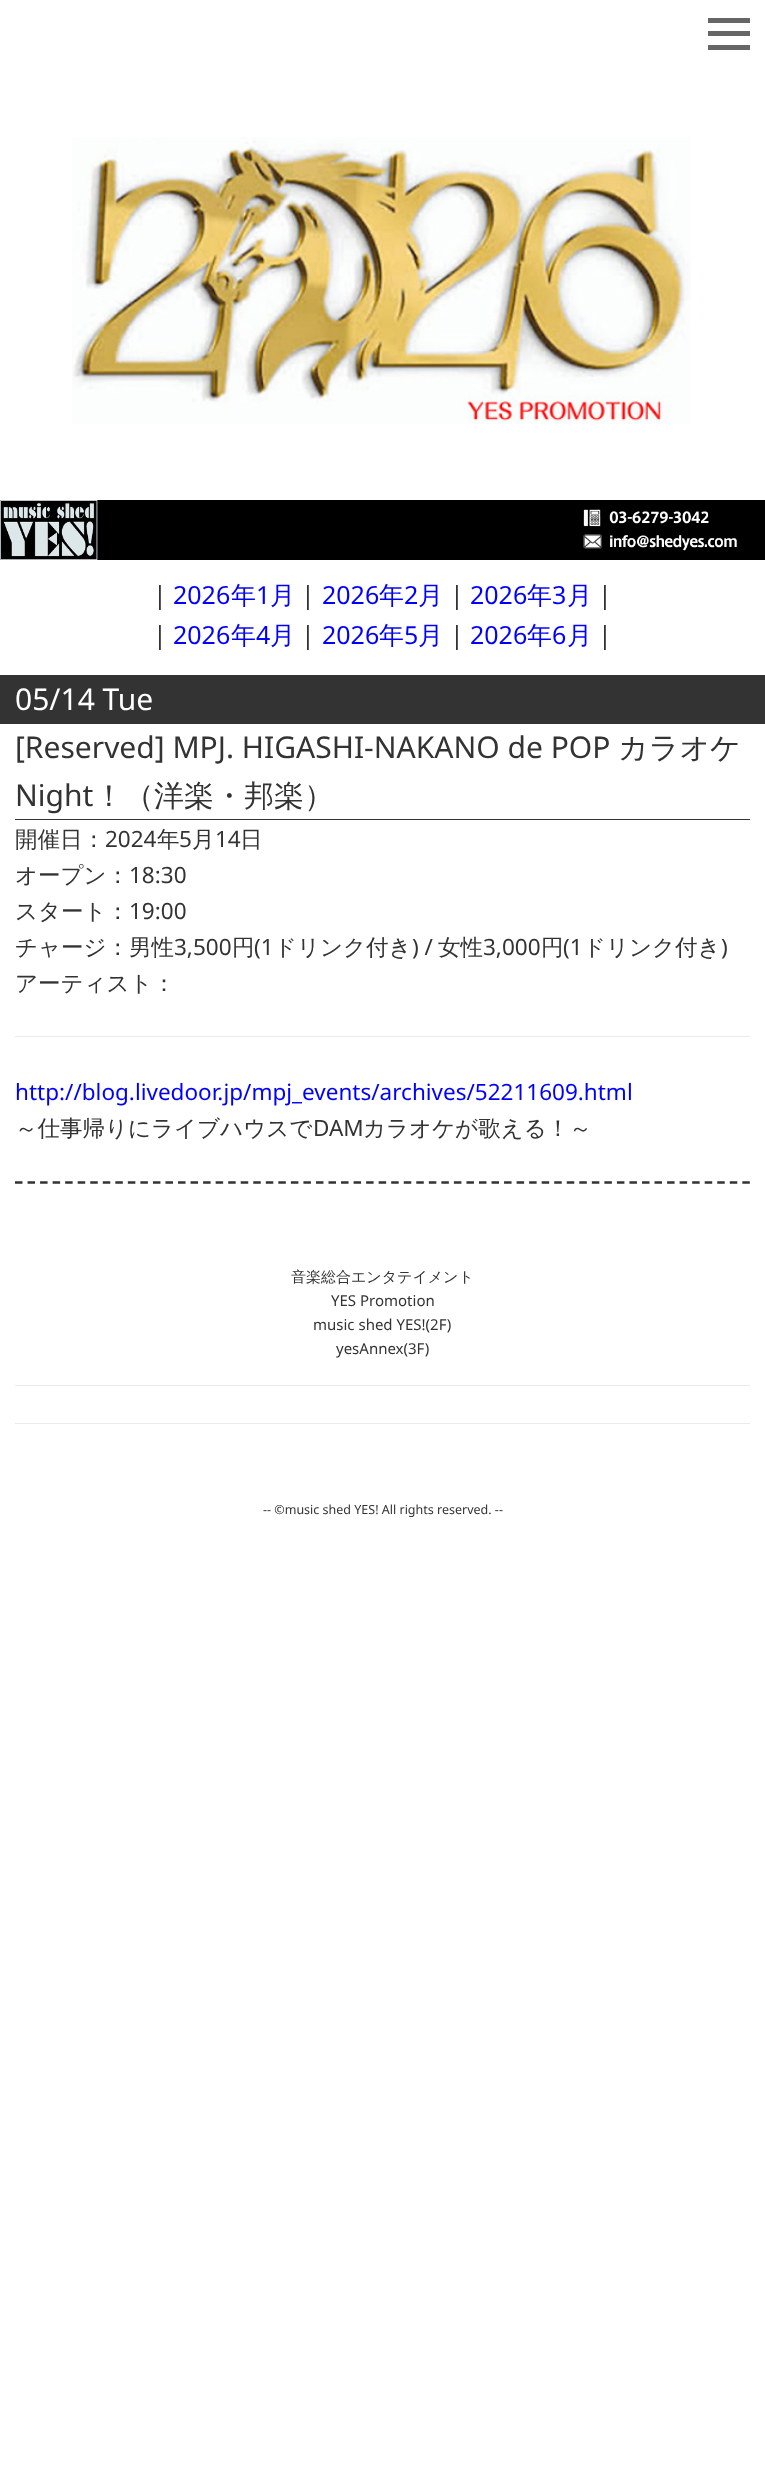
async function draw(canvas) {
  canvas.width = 765
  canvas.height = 2476
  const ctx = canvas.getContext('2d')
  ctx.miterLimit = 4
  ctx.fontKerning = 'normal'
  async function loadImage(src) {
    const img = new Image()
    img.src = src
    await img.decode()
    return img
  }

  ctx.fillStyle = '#fff'
  ctx.fillRect(0, 0, 765, 2476)
  ctx.fillStyle = '#666'
  ctx.fillRect(708, 18, 42, 5)
  ctx.fillRect(708, 31, 42, 5)
  ctx.fillRect(708, 45, 42, 5)
  ctx.drawImage(await loadImage('image0.png'), 72, 137, 619, 287)
  ctx.drawImage(await loadImage('image1.png'), 0, 500, 765, 60)
  ctx.font = '25px Noto Sans'
  ctx.fillStyle = '#333'
  ctx.fillText('|', 153, 604)
  ctx.fillStyle = '#00f'
  ctx.fillText('2026', 173, 604)
  ctx.font = '500 25px WenQuanYi Zen Hei'
  ctx.fillText('年', 231, 604)
  ctx.font = '25px Noto Sans'
  ctx.fillText('1', 256, 604)
  ctx.font = '500 25px WenQuanYi Zen Hei'
  ctx.fillText('月', 270, 604)
  ctx.font = '25px Noto Sans'
  ctx.fillStyle = '#333'
  ctx.fillText('|', 301, 604)
  ctx.fillStyle = '#00f'
  ctx.fillText('2026', 322, 604)
  ctx.font = '500 25px WenQuanYi Zen Hei'
  ctx.fillText('年', 379, 604)
  ctx.font = '25px Noto Sans'
  ctx.fillText('2', 404, 604)
  ctx.font = '500 25px WenQuanYi Zen Hei'
  ctx.fillText('月', 418, 604)
  ctx.font = '25px Noto Sans'
  ctx.fillStyle = '#333'
  ctx.fillText('|', 450, 604)
  ctx.fillStyle = '#00f'
  ctx.fillText('2026', 470, 604)
  ctx.font = '500 25px WenQuanYi Zen Hei'
  ctx.fillText('年', 527, 604)
  ctx.font = '25px Noto Sans'
  ctx.fillText('3', 552, 604)
  ctx.font = '500 25px WenQuanYi Zen Hei'
  ctx.fillText('月', 567, 604)
  ctx.font = '25px Noto Sans'
  ctx.fillStyle = '#333'
  ctx.fillText('|', 598, 604)
  ctx.fillText('|', 153, 644)
  ctx.fillStyle = '#00f'
  ctx.fillText('2026', 173, 644)
  ctx.font = '500 25px WenQuanYi Zen Hei'
  ctx.fillText('年', 231, 644)
  ctx.font = '25px Noto Sans'
  ctx.fillText('4', 256, 644)
  ctx.font = '500 25px WenQuanYi Zen Hei'
  ctx.fillText('月', 270, 644)
  ctx.font = '25px Noto Sans'
  ctx.fillStyle = '#333'
  ctx.fillText('|', 301, 644)
  ctx.fillStyle = '#00f'
  ctx.fillText('2026', 322, 644)
  ctx.font = '500 25px WenQuanYi Zen Hei'
  ctx.fillText('年', 379, 644)
  ctx.font = '25px Noto Sans'
  ctx.fillText('5', 404, 644)
  ctx.font = '500 25px WenQuanYi Zen Hei'
  ctx.fillText('月', 418, 644)
  ctx.font = '25px Noto Sans'
  ctx.fillStyle = '#333'
  ctx.fillText('|', 450, 644)
  ctx.fillStyle = '#00f'
  ctx.fillText('2026', 470, 644)
  ctx.font = '500 25px WenQuanYi Zen Hei'
  ctx.fillText('年', 527, 644)
  ctx.font = '25px Noto Sans'
  ctx.fillText('6', 552, 644)
  ctx.font = '500 25px WenQuanYi Zen Hei'
  ctx.fillText('月', 567, 644)
  ctx.font = '25px Noto Sans'
  ctx.fillStyle = '#333'
  ctx.fillText('|', 598, 644)
  ctx.fillRect(0, 675, 765, 49)
  ctx.font = '30px Noto Sans'
  ctx.fillStyle = '#fff'
  ctx.fillText('05/14 Tue', 15, 710)
  ctx.fillStyle = '#333'
  ctx.fillRect(15, 819, 735, 1)
  ctx.fillText('[Reserved] MPJ. HIGASHI-NAKANO de POP', 15, 758)
  ctx.font = '500 30px WenQuanYi Zen Hei'
  ctx.fillText('カラオケ', 618, 758)
  ctx.font = '30px Noto Sans'
  ctx.fillText('Night', 15, 806)
  ctx.font = '500 30px WenQuanYi Zen Hei'
  ctx.fillText('！（洋楽・邦楽）', 94, 806)
  ctx.font = '500 22.5px WenQuanYi Zen Hei'
  ctx.fillText('開催日：', 15, 847)
  ctx.font = '22.5px Noto Sans'
  ctx.fillText('2024', 105, 847)
  ctx.font = '500 22.5px WenQuanYi Zen Hei'
  ctx.fillText('年', 157, 847)
  ctx.font = '22.5px Noto Sans'
  ctx.fillText('5', 179, 847)
  ctx.font = '500 22.5px WenQuanYi Zen Hei'
  ctx.fillText('月', 192, 847)
  ctx.font = '22.5px Noto Sans'
  ctx.fillText('14', 215, 847)
  ctx.font = '500 22.5px WenQuanYi Zen Hei'
  ctx.fillText('日', 240, 847)
  ctx.fillText('オープン：', 15, 883)
  ctx.font = '22.5px Noto Sans'
  ctx.fillText('18:30', 129, 883)
  ctx.font = '500 22.5px WenQuanYi Zen Hei'
  ctx.fillText('スタート：', 15, 919)
  ctx.font = '22.5px Noto Sans'
  ctx.fillText('19:00', 129, 919)
  ctx.font = '500 22.5px WenQuanYi Zen Hei'
  ctx.fillText('チャージ：男性', 15, 955)
  ctx.font = '22.5px Noto Sans'
  ctx.fillText('3,500', 174, 955)
  ctx.font = '500 22.5px WenQuanYi Zen Hei'
  ctx.fillText('円', 232, 955)
  ctx.font = '22.5px Noto Sans'
  ctx.fillText('(1', 254, 955)
  ctx.font = '500 22.5px WenQuanYi Zen Hei'
  ctx.fillText('ドリンク付き', 274, 955)
  ctx.font = '22.5px Noto Sans'
  ctx.fillText(') /', 412, 955)
  ctx.font = '500 22.5px WenQuanYi Zen Hei'
  ctx.fillText('女性', 438, 955)
  ctx.font = '22.5px Noto Sans'
  ctx.fillText('3,000', 483, 955)
  ctx.font = '500 22.5px WenQuanYi Zen Hei'
  ctx.fillText('円', 541, 955)
  ctx.font = '22.5px Noto Sans'
  ctx.fillText('(1', 563, 955)
  ctx.font = '500 22.5px WenQuanYi Zen Hei'
  ctx.fillText('ドリンク付き', 583, 955)
  ctx.font = '22.5px Noto Sans'
  ctx.fillText(')', 721, 955)
  ctx.font = '500 22.5px WenQuanYi Zen Hei'
  ctx.fillText('アーティスト：', 15, 991)
  ctx.fillStyle = '#ebebeb'
  ctx.fillRect(15, 1036, 735, 1)
  ctx.font = '22.5px Noto Sans'
  ctx.fillStyle = '#00f'
  ctx.fillText('http://blog.livedoor.jp/mpj_events/archives/52211609.html', 15, 1100)
  ctx.font = '500 22.5px WenQuanYi Zen Hei'
  ctx.fillStyle = '#333'
  ctx.fillText('～仕事帰りにライブハウスで', 15, 1136)
  ctx.font = '22.5px Noto Sans'
  ctx.fillText('DAM', 313, 1136)
  ctx.font = '500 22.5px WenQuanYi Zen Hei'
  ctx.fillText('カラオケが歌える！～', 363, 1136)
  ctx.beginPath()
  ctx.moveTo(15, 1182.5)
  ctx.lineTo(750, 1182.5)
  ctx.strokeStyle = '#333'
  ctx.lineWidth = 2.5
  ctx.setLineDash([7.5, 5.04])
  ctx.stroke()
  ctx.font = '500 15px WenQuanYi Zen Hei'
  ctx.fillText('音楽総合エンタテイメント', 291, 1282)
  ctx.font = '15px Noto Sans'
  ctx.fillText('YES Promotion', 331, 1306)
  ctx.fillText('music shed YES!(2F)', 313, 1330)
  ctx.fillText('yesAnnex(3F)', 336, 1354)
  ctx.fillStyle = '#ebebeb'
  ctx.fillRect(15, 1385, 735, 1)
  ctx.fillRect(15, 1423, 735, 1)
  ctx.font = '12.5px Noto Sans'
  ctx.fillStyle = '#333'
  ctx.fillText('-- ©music shed YES! All rights reserved. --', 263, 1514)
}

draw(document.querySelector('canvas'))
